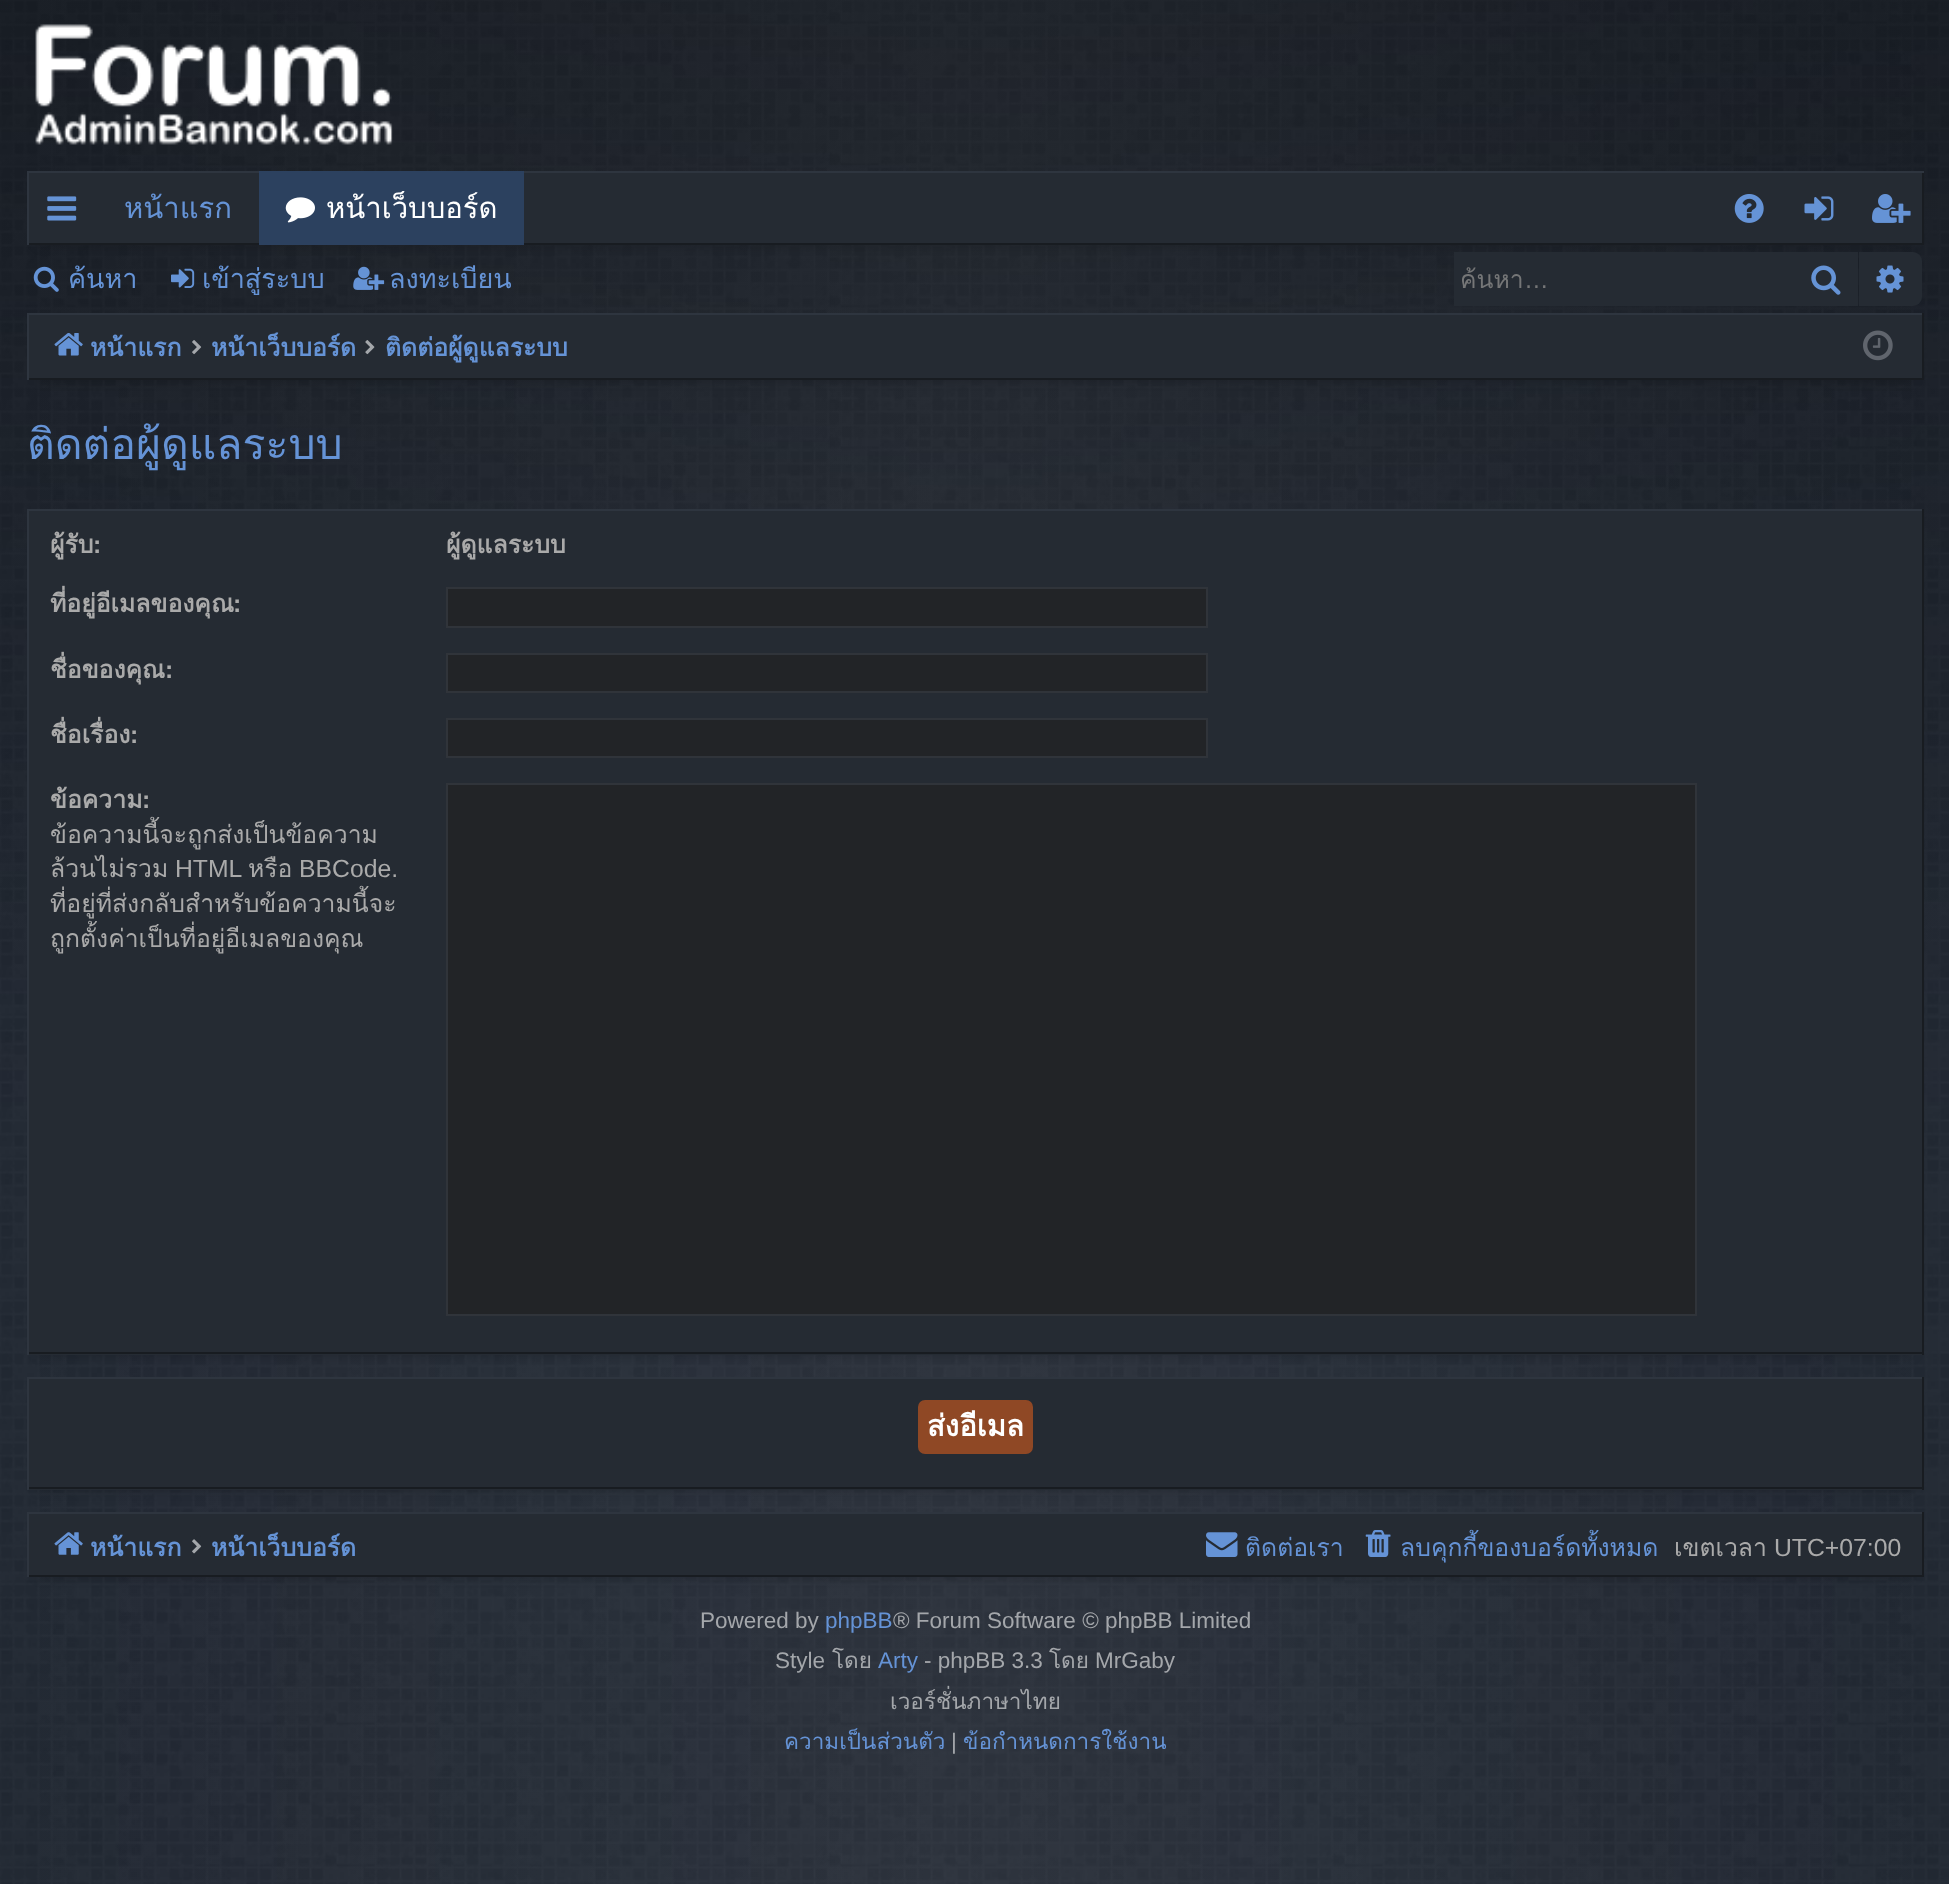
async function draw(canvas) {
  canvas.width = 1949
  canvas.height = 1884
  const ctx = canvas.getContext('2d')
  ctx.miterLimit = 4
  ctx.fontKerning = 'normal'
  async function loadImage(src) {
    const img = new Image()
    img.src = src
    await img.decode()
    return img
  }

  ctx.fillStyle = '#1c232e'
  ctx.fillRect(0, 0, 1949, 1884)
  ctx.drawImage(await loadImage('image0.png'), 0, 0, 1949, 1884)
  ctx.drawImage(await loadImage('image1.png'), 35, 24, 358, 121)
  ctx.fillStyle = '#00000033'
  ctx.filter = 'blur(5.5px)'
  ctx.beginPath()
  ctx.rect(38, 194, 1875, 51)
  ctx.fill()
  ctx.filter = 'none'
  ctx.fillStyle = '#252b33'
  ctx.fillRect(29, 173, 1893, 70)
  ctx.save()
  ctx.beginPath()
  ctx.rect(27, 171, 1897, 74)
  ctx.clip()
  ctx.fillStyle = '#181c21'
  ctx.beginPath()
  ctx.moveTo(-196, -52)
  ctx.lineTo(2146, -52)
  ctx.lineTo(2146, 468)
  ctx.lineTo(-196, 468)
  ctx.closePath()
  ctx.moveTo(25, 169)
  ctx.lineTo(1922, 169)
  ctx.lineTo(1922, 243)
  ctx.lineTo(25, 243)
  ctx.closePath()
  ctx.fill('evenodd')
  ctx.fillStyle = '#2e353f'
  ctx.beginPath()
  ctx.moveTo(-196, -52)
  ctx.lineTo(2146, -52)
  ctx.lineTo(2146, 468)
  ctx.lineTo(-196, 468)
  ctx.closePath()
  ctx.moveTo(29, 173)
  ctx.lineTo(1926, 173)
  ctx.lineTo(1926, 248)
  ctx.lineTo(29, 248)
  ctx.closePath()
  ctx.fill('evenodd')
  ctx.restore()
  ctx.drawImage(await loadImage('image2.png'), 47, 196, 30, 25)
  ctx.font = '29.25px Loma'
  ctx.fillStyle = '#6593d6'
  ctx.fillText('หน้าแรก', 124, 218)
  ctx.fillStyle = '#2c415f'
  ctx.fillRect(259, 171, 265, 74)
  ctx.drawImage(await loadImage('image3.png'), 285, 197, 30, 26)
  ctx.fillStyle = '#fff'
  ctx.fillText('หน้าเว็บบอร์ด', 326, 218)
  ctx.drawImage(await loadImage('image4.png'), 1734, 194, 30, 29)
  ctx.drawImage(await loadImage('image5.png'), 1804, 196, 30, 25)
  ctx.drawImage(await loadImage('image6.png'), 1872, 194, 39, 29)
  ctx.font = '27px Loma'
  ctx.fillStyle = '#6593d6'
  ctx.fillText('ค้นหา', 68, 288)
  ctx.drawImage(await loadImage('image7.png'), 33, 266, 26, 26)
  ctx.drawImage(await loadImage('image8.png'), 171, 268, 24, 20)
  ctx.fillText('เข้าสู่ระบบ', 202, 288)
  ctx.drawImage(await loadImage('image9.png'), 353, 266, 32, 24)
  ctx.fillText('ลงทะเบียน', 389, 288)
  ctx.fillStyle = '#252b33'
  ctx.fillRect(1454, 252, 337, 54)
  ctx.save()
  ctx.beginPath()
  ctx.rect(1460, 259, 315, 40)
  ctx.clip()
  ctx.font = '24.75px Loma'
  ctx.fillStyle = '#757677'
  ctx.fillText('ค้นหา', 1460, 288)
  ctx.restore()
  ctx.font = '24.75px Liberation Sans'
  ctx.fillStyle = '#757677'
  ctx.fillText('…', 1524, 288)
  ctx.fillStyle = '#252b33'
  ctx.fillRect(1791, 252, 67, 54)
  ctx.drawImage(await loadImage('image10.png'), 1811, 265, 30, 30)
  ctx.beginPath()
  ctx.roundRect(1859, 252, 63, 54, [0, 9, 9, 0])
  ctx.fill()
  ctx.drawImage(await loadImage('image11.png'), 1876, 265, 28, 28)
  ctx.fillStyle = '#00000033'
  ctx.filter = 'blur(5.5px)'
  ctx.beginPath()
  ctx.rect(38, 335, 1875, 45)
  ctx.fill()
  ctx.filter = 'none'
  ctx.fillStyle = '#252b33'
  ctx.fillRect(29, 315, 1893, 63)
  ctx.fillStyle = '#2e353f'
  ctx.fillRect(27, 313, 1897, 2)
  ctx.fillStyle = '#181c21'
  ctx.fillRect(1922, 313, 2, 67)
  ctx.fillRect(27, 378, 1897, 2)
  ctx.fillStyle = '#2e353f'
  ctx.fillRect(27, 313, 2, 67)
  ctx.drawImage(await loadImage('image12.png'), 54, 333, 29, 23)
  ctx.font = 'bold 24.75px Loma'
  ctx.fillStyle = '#6593d6'
  ctx.fillText('หน้าแรก', 90, 356)
  ctx.drawImage(await loadImage('image13.png'), 192, 340, 10, 15)
  ctx.fillText('หน้าเว็บบอร์ด', 211, 356)
  ctx.drawImage(await loadImage('image14.png'), 365, 340, 10, 15)
  ctx.save()
  ctx.beginPath()
  ctx.rect(385, 322, 182, 49)
  ctx.clip()
  ctx.fillText('ติดต่อผู้ดูแลระบบ', 385, 356)
  ctx.restore()
  ctx.drawImage(await loadImage('image15.png'), 1863, 330, 30, 31)
  ctx.font = '42.75px Loma'
  ctx.fillText('ติดต่อผู้ดูแลระบบ', 27, 459)
  ctx.fillStyle = '#00000033'
  ctx.filter = 'blur(5.5px)'
  ctx.beginPath()
  ctx.rect(38, 531, 1875, 824)
  ctx.fill()
  ctx.filter = 'none'
  ctx.fillStyle = '#252b33'
  ctx.fillRect(29, 511, 1893, 844)
  ctx.fillStyle = '#2e353f'
  ctx.fillRect(27, 509, 1897, 2)
  ctx.fillStyle = '#181c21'
  ctx.fillRect(1922, 509, 2, 846)
  ctx.fillRect(27, 1352, 1897, 2)
  ctx.fillStyle = '#2e353f'
  ctx.fillRect(27, 509, 2, 846)
  ctx.save()
  ctx.beginPath()
  ctx.rect(50, 520, 1851, 58)
  ctx.clip()
  ctx.font = 'bold 24.75px Loma'
  ctx.fillStyle = '#aaa'
  ctx.fillText('ผู้รับ', 50, 553)
  ctx.restore()
  ctx.font = 'bold 24.75px Liberation Sans'
  ctx.fillStyle = '#aaa'
  ctx.fillText(':', 93, 553)
  ctx.font = 'bold 24.75px Loma'
  ctx.fillText('ผู้ดูแลระบบ', 446, 553)
  ctx.save()
  ctx.beginPath()
  ctx.rect(50, 578, 1851, 66)
  ctx.clip()
  ctx.fillText('ที่อยู่อีเมลของคุณ', 50, 612)
  ctx.restore()
  ctx.font = 'bold 24.75px Liberation Sans'
  ctx.fillText(':', 233, 612)
  ctx.fillStyle = '#222427'
  ctx.beginPath()
  ctx.rect(447, 588, 760, 39)
  ctx.fill()
  ctx.strokeStyle = '#30343a'
  ctx.lineWidth = 2
  ctx.stroke()
  ctx.save()
  ctx.beginPath()
  ctx.rect(50, 644, 1851, 65)
  ctx.clip()
  ctx.font = 'bold 24.75px Loma'
  ctx.fillStyle = '#aaa'
  ctx.fillText('ชื่อของคุณ', 50, 678)
  ctx.restore()
  ctx.fillStyle = '#aaa'
  ctx.fillText(':', 165, 678)
  ctx.fillStyle = '#222427'
  ctx.beginPath()
  ctx.rect(447, 654, 760, 38)
  ctx.fill()
  ctx.stroke()
  ctx.save()
  ctx.beginPath()
  ctx.rect(50, 709, 1851, 65)
  ctx.clip()
  ctx.font = 'bold 24.75px Loma'
  ctx.fillStyle = '#aaa'
  ctx.fillText('ชื่อเรื่อง', 50, 743)
  ctx.restore()
  ctx.fillStyle = '#aaa'
  ctx.fillText(':', 130, 743)
  ctx.fillStyle = '#222427'
  ctx.beginPath()
  ctx.rect(447, 719, 760, 38)
  ctx.fill()
  ctx.stroke()
  ctx.save()
  ctx.beginPath()
  ctx.rect(50, 774, 1851, 567)
  ctx.clip()
  ctx.font = 'bold 24.75px Loma'
  ctx.fillStyle = '#aaa'
  ctx.fillText('ข้อความ', 50, 808)
  ctx.restore()
  ctx.fillStyle = '#aaa'
  ctx.fillText(':', 142, 808)
  ctx.save()
  ctx.beginPath()
  ctx.rect(50, 774, 1851, 567)
  ctx.clip()
  ctx.font = '24.75px Loma'
  ctx.fillText('ข้อความนี้จะถูกส่งเป็นข้อความ', 50, 843)
  ctx.fillText('ล้วนไม่รวม', 50, 877)
  ctx.restore()
  ctx.font = '24.75px Liberation Sans'
  ctx.fillText('HTML', 175, 877)
  ctx.font = '24.75px Loma'
  ctx.fillText('หรือ', 248, 877)
  ctx.font = '24.75px Liberation Sans'
  ctx.fillText('BBCode.', 299, 877)
  ctx.save()
  ctx.beginPath()
  ctx.rect(50, 774, 1851, 567)
  ctx.clip()
  ctx.font = '24.75px Loma'
  ctx.fillText('ที่อยู่ที่ส่งกลับสำหรับข้อความนี้จะ', 50, 912)
  ctx.fillText('ถูกตั้งค่าเป็นที่อยู่อีเมลของคุณ', 50, 947)
  ctx.restore()
  ctx.fillStyle = '#222427'
  ctx.beginPath()
  ctx.rect(447, 784, 1249, 531)
  ctx.fill()
  ctx.stroke()
  ctx.fillStyle = '#00000033'
  ctx.filter = 'blur(5.5px)'
  ctx.beginPath()
  ctx.rect(38, 1400, 1875, 90)
  ctx.fill()
  ctx.filter = 'none'
  ctx.fillStyle = '#252b33'
  ctx.fillRect(29, 1379, 1893, 111)
  ctx.fillStyle = '#2e353f'
  ctx.fillRect(27, 1377, 1897, 2)
  ctx.fillStyle = '#181c21'
  ctx.fillRect(1922, 1377, 2, 113)
  ctx.fillRect(27, 1487, 1897, 2)
  ctx.fillStyle = '#2e353f'
  ctx.fillRect(27, 1377, 2, 113)
  ctx.fillStyle = '#8f4825'
  ctx.beginPath()
  ctx.roundRect(919, 1401, 113, 52, 6)
  ctx.fill()
  ctx.strokeStyle = '#8f4825'
  ctx.stroke()
  ctx.font = 'bold 29.25px Loma'
  ctx.fillStyle = '#fff'
  ctx.fillText('ส่งอีเมล', 927, 1436)
  ctx.fillStyle = '#00000033'
  ctx.filter = 'blur(5.5px)'
  ctx.beginPath()
  ctx.rect(38, 1535, 1875, 42)
  ctx.fill()
  ctx.filter = 'none'
  ctx.fillStyle = '#252b33'
  ctx.fillRect(29, 1514, 1893, 61)
  ctx.fillStyle = '#2e353f'
  ctx.fillRect(27, 1512, 1897, 2)
  ctx.fillStyle = '#181c21'
  ctx.fillRect(1922, 1512, 2, 65)
  ctx.fillRect(27, 1575, 1897, 2)
  ctx.fillStyle = '#2e353f'
  ctx.fillRect(27, 1512, 2, 65)
  ctx.drawImage(await loadImage('image16.png'), 54, 1532, 29, 23)
  ctx.font = 'bold 24.75px Loma'
  ctx.fillStyle = '#6593d6'
  ctx.fillText('หน้าแรก', 90, 1556)
  ctx.drawImage(await loadImage('image17.png'), 192, 1539, 10, 15)
  ctx.fillText('หน้าเว็บบอร์ด', 211, 1556)
  ctx.drawImage(await loadImage('image18.png'), 1206, 1532, 32, 25)
  ctx.font = '24.75px Loma'
  ctx.fillText('ติดต่อเรา', 1245, 1556)
  ctx.drawImage(await loadImage('image19.png'), 1365, 1530, 26, 27)
  ctx.fillText('ลบคุกกี้ของบอร์ดทั้งหมด', 1400, 1556)
  ctx.fillStyle = '#aaa'
  ctx.fillText('เขตเวลา', 1674, 1556)
  ctx.font = '24.75px Liberation Sans'
  ctx.fillText('UTC+07:00', 1774, 1556)
  ctx.font = '22.5px Liberation Sans'
  ctx.fillStyle = '#a4a7ab'
  ctx.fillText('Powered by', 700, 1628)
  ctx.fillStyle = '#6593d6'
  ctx.fillText('phpBB', 825, 1628)
  ctx.fillStyle = '#a4a7ab'
  ctx.fillText('® Forum Software © phpBB Limited', 893, 1628)
  ctx.fillText('Style', 775, 1668)
  ctx.font = '22.5px Loma'
  ctx.fillText('โดย', 832, 1668)
  ctx.font = '22.5px Liberation Sans'
  ctx.fillStyle = '#6593d6'
  ctx.fillText('Arty', 878, 1668)
  ctx.fillStyle = '#a4a7ab'
  ctx.fillText('- phpBB 3.3', 924, 1668)
  ctx.font = '22.5px Loma'
  ctx.fillText('โดย', 1049, 1668)
  ctx.font = '22.5px Liberation Sans'
  ctx.fillText('MrGaby', 1095, 1668)
  ctx.font = '22.5px Loma'
  ctx.fillText('เวอร์ชั่นภาษาไทย', 890, 1709)
  ctx.fillStyle = '#6593d6'
  ctx.fillText('ความเป็นส่วนตัว', 784, 1749)
  ctx.font = '22.5px Liberation Sans'
  ctx.fillStyle = '#a4a7ab'
  ctx.fillText('|', 951, 1749)
  ctx.font = '22.5px Loma'
  ctx.fillStyle = '#6593d6'
  ctx.fillText('ข้อกำหนดการใช้งาน', 963, 1749)
}

draw(document.querySelector('canvas'))
